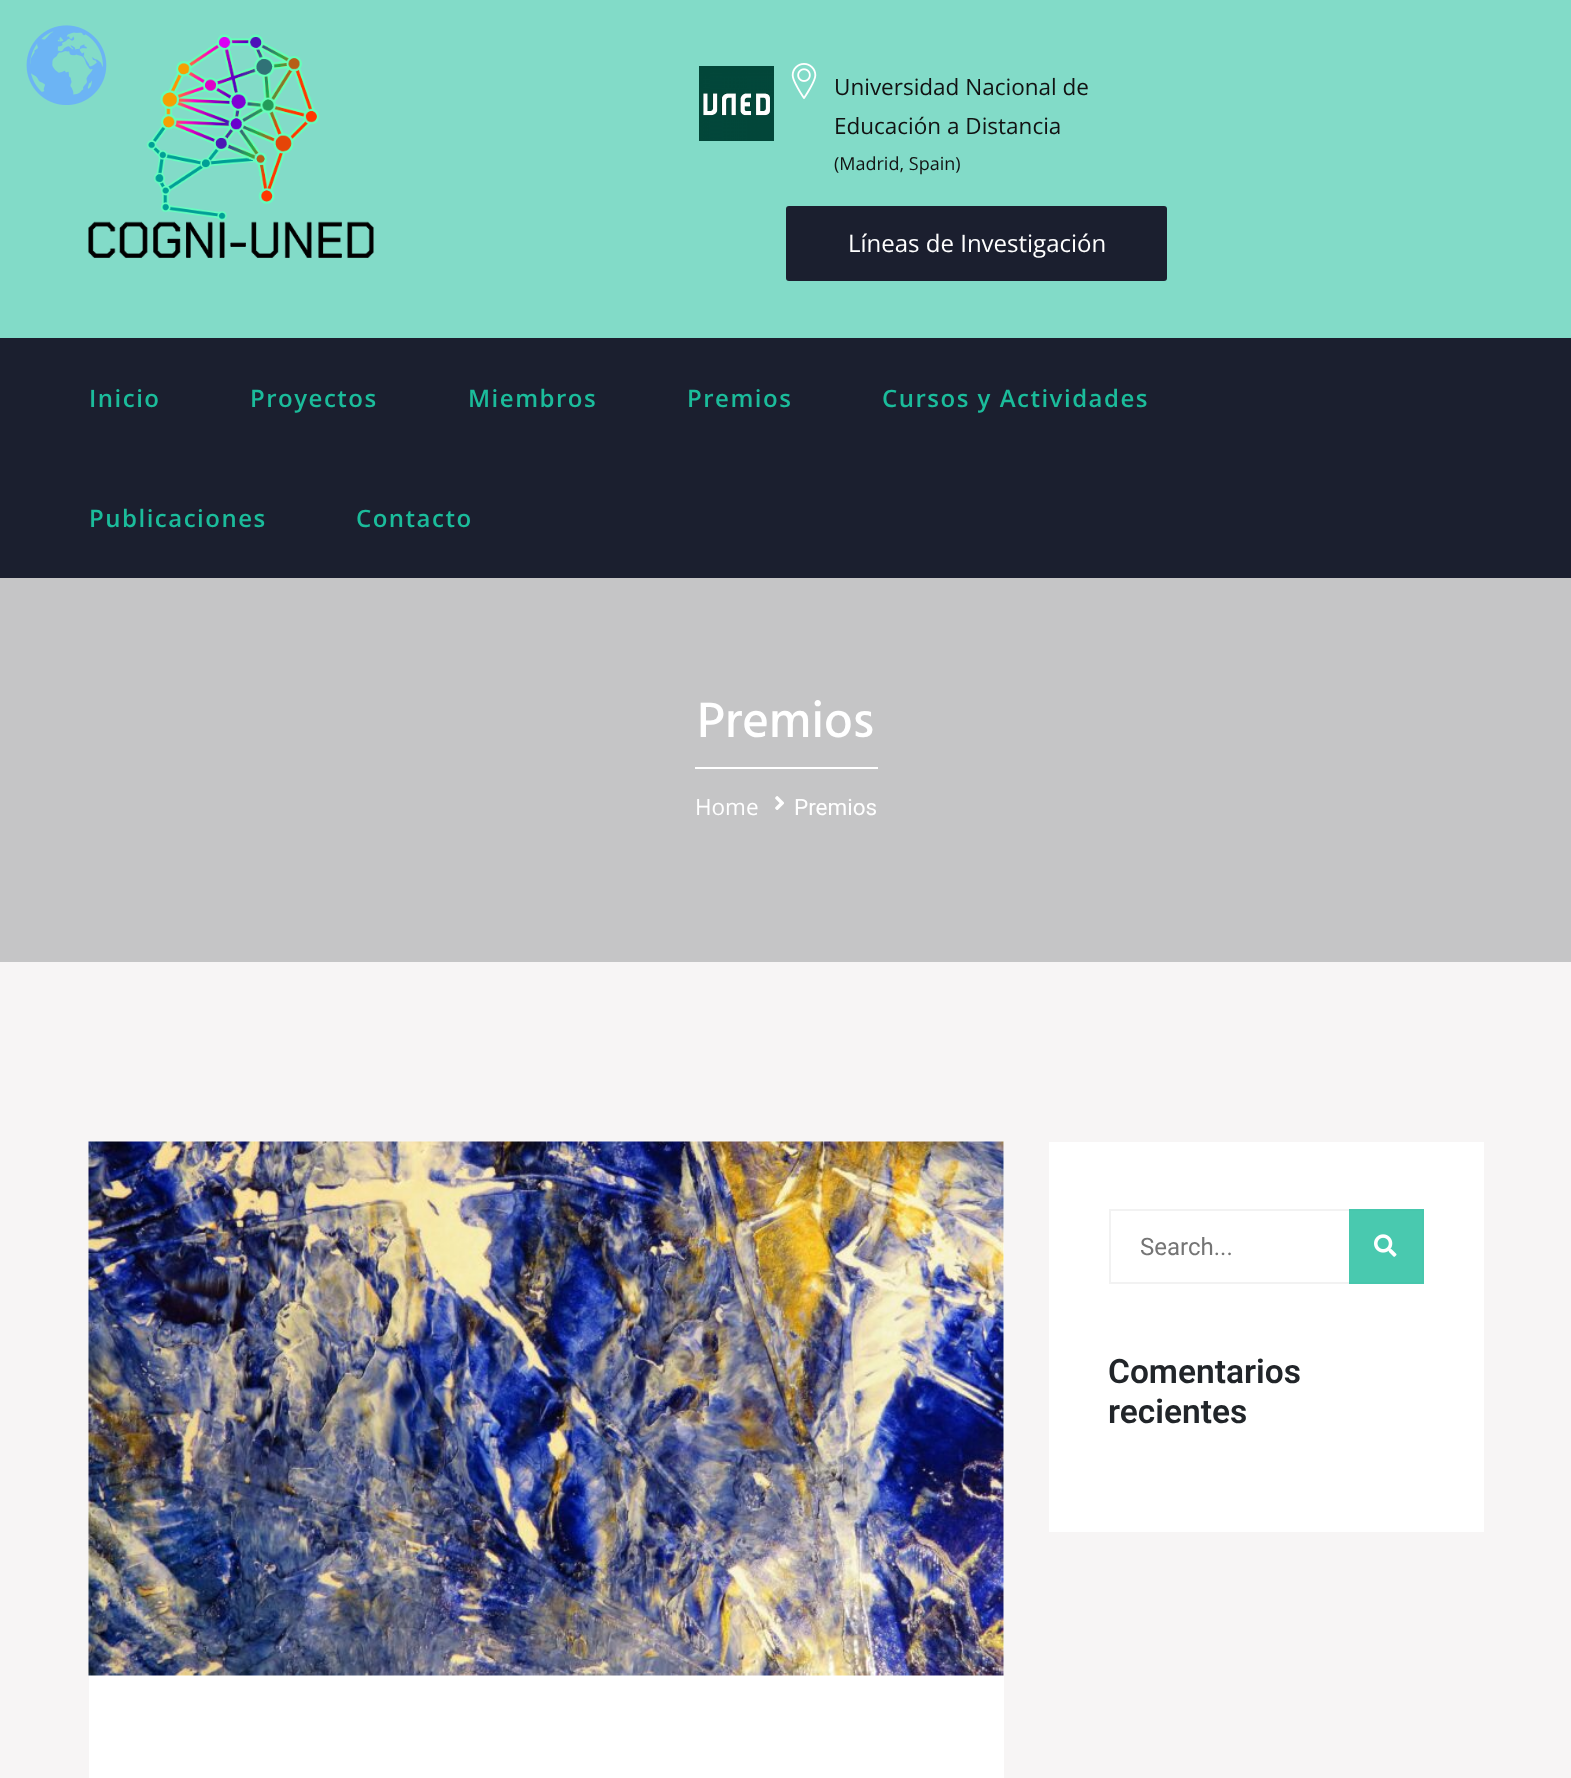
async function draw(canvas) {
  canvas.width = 1571
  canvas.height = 1778
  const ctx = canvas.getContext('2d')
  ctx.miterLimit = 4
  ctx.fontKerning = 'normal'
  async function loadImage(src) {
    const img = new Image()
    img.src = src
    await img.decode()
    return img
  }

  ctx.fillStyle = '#c5c5c6'
  ctx.fillRect(0, 0, 1571, 1778)
  ctx.fillStyle = '#82dbc8'
  ctx.fillRect(0, 0, 1571, 338)
  ctx.drawImage(await loadImage('image1.png'), 88, 34, 286, 224)
  ctx.drawImage(await loadImage('image0.png'), 26, 25, 81, 80)
  ctx.drawImage(await loadImage('image2.png'), 791, 63, 26, 36)
  ctx.drawImage(await loadImage('image3.png'), 699, 66, 75, 75)
  ctx.font = '22.5px Open Sans'
  ctx.fillStyle = '#121212'
  ctx.fillText('Universidad Nacional de', 834, 95)
  ctx.fillText('Educación a Distancia', 834, 134)
  ctx.font = '18px Open Sans'
  ctx.fillText('(Madrid, Spain)', 834, 170)
  ctx.fillStyle = '#1b1f2f'
  ctx.beginPath()
  ctx.roundRect(786, 206, 381, 75, 3)
  ctx.fill()
  ctx.font = '24px Open Sans'
  ctx.fillStyle = '#fff'
  ctx.fillText('Líneas de Investigación', 848, 252)
  ctx.fillStyle = '#1b1f2f'
  ctx.fillRect(0, 338, 1571, 240)
  ctx.letterSpacing = '1.5px'
  ctx.font = '600 24px Open Sans'
  ctx.fillStyle = '#1bbc9b'
  ctx.fillText('Inicio', 89, 407)
  ctx.fillText('Proyectos', 250, 407)
  ctx.fillText('Miembros', 468, 407)
  ctx.fillText('Premios', 687, 407)
  ctx.fillText('Cursos y Actividades', 882, 407)
  ctx.fillText('Publicaciones', 89, 527)
  ctx.fillText('Contacto', 356, 527)
  ctx.fillStyle = '#fff'
  ctx.fillRect(695, 767, 183, 2)
  ctx.letterSpacing = '0px'
  ctx.font = '500 51px Hind'
  ctx.fillText('Premios', 697, 737)
  ctx.font = '22.5px Open Sans'
  ctx.fillText('Home', 695, 815)
  ctx.drawImage(await loadImage('image4.png'), 775, 796, 9, 14)
  ctx.font = '22.5px Roboto'
  ctx.fillText('Premios', 794, 815)
  ctx.fillStyle = '#f7f5f5'
  ctx.fillRect(0, 962, 1571, 816)
  ctx.fillStyle = '#fff'
  ctx.fillRect(89, 1142, 915, 636)
  ctx.drawImage(await loadImage('image5.png'), 88, 1141, 916, 535)
  ctx.fillRect(1049, 1142, 435, 390)
  ctx.strokeStyle = '#f2f2f2'
  ctx.lineWidth = 2
  ctx.strokeRect(1110, 1210, 313, 73)
  ctx.font = '24px Roboto'
  ctx.fillStyle = '#757575'
  ctx.fillText('Search...', 1140, 1255)
  ctx.fillStyle = '#1bbc9bcc'
  ctx.fillRect(1349, 1209, 75, 75)
  ctx.drawImage(await loadImage('image6.png'), 1374, 1234, 23, 23)
  ctx.font = '600 33.5px Roboto'
  ctx.fillStyle = '#212529'
  ctx.fillText('Comentarios', 1108, 1383)
  ctx.fillText('recientes', 1108, 1423)
}

draw(document.querySelector('canvas'))
